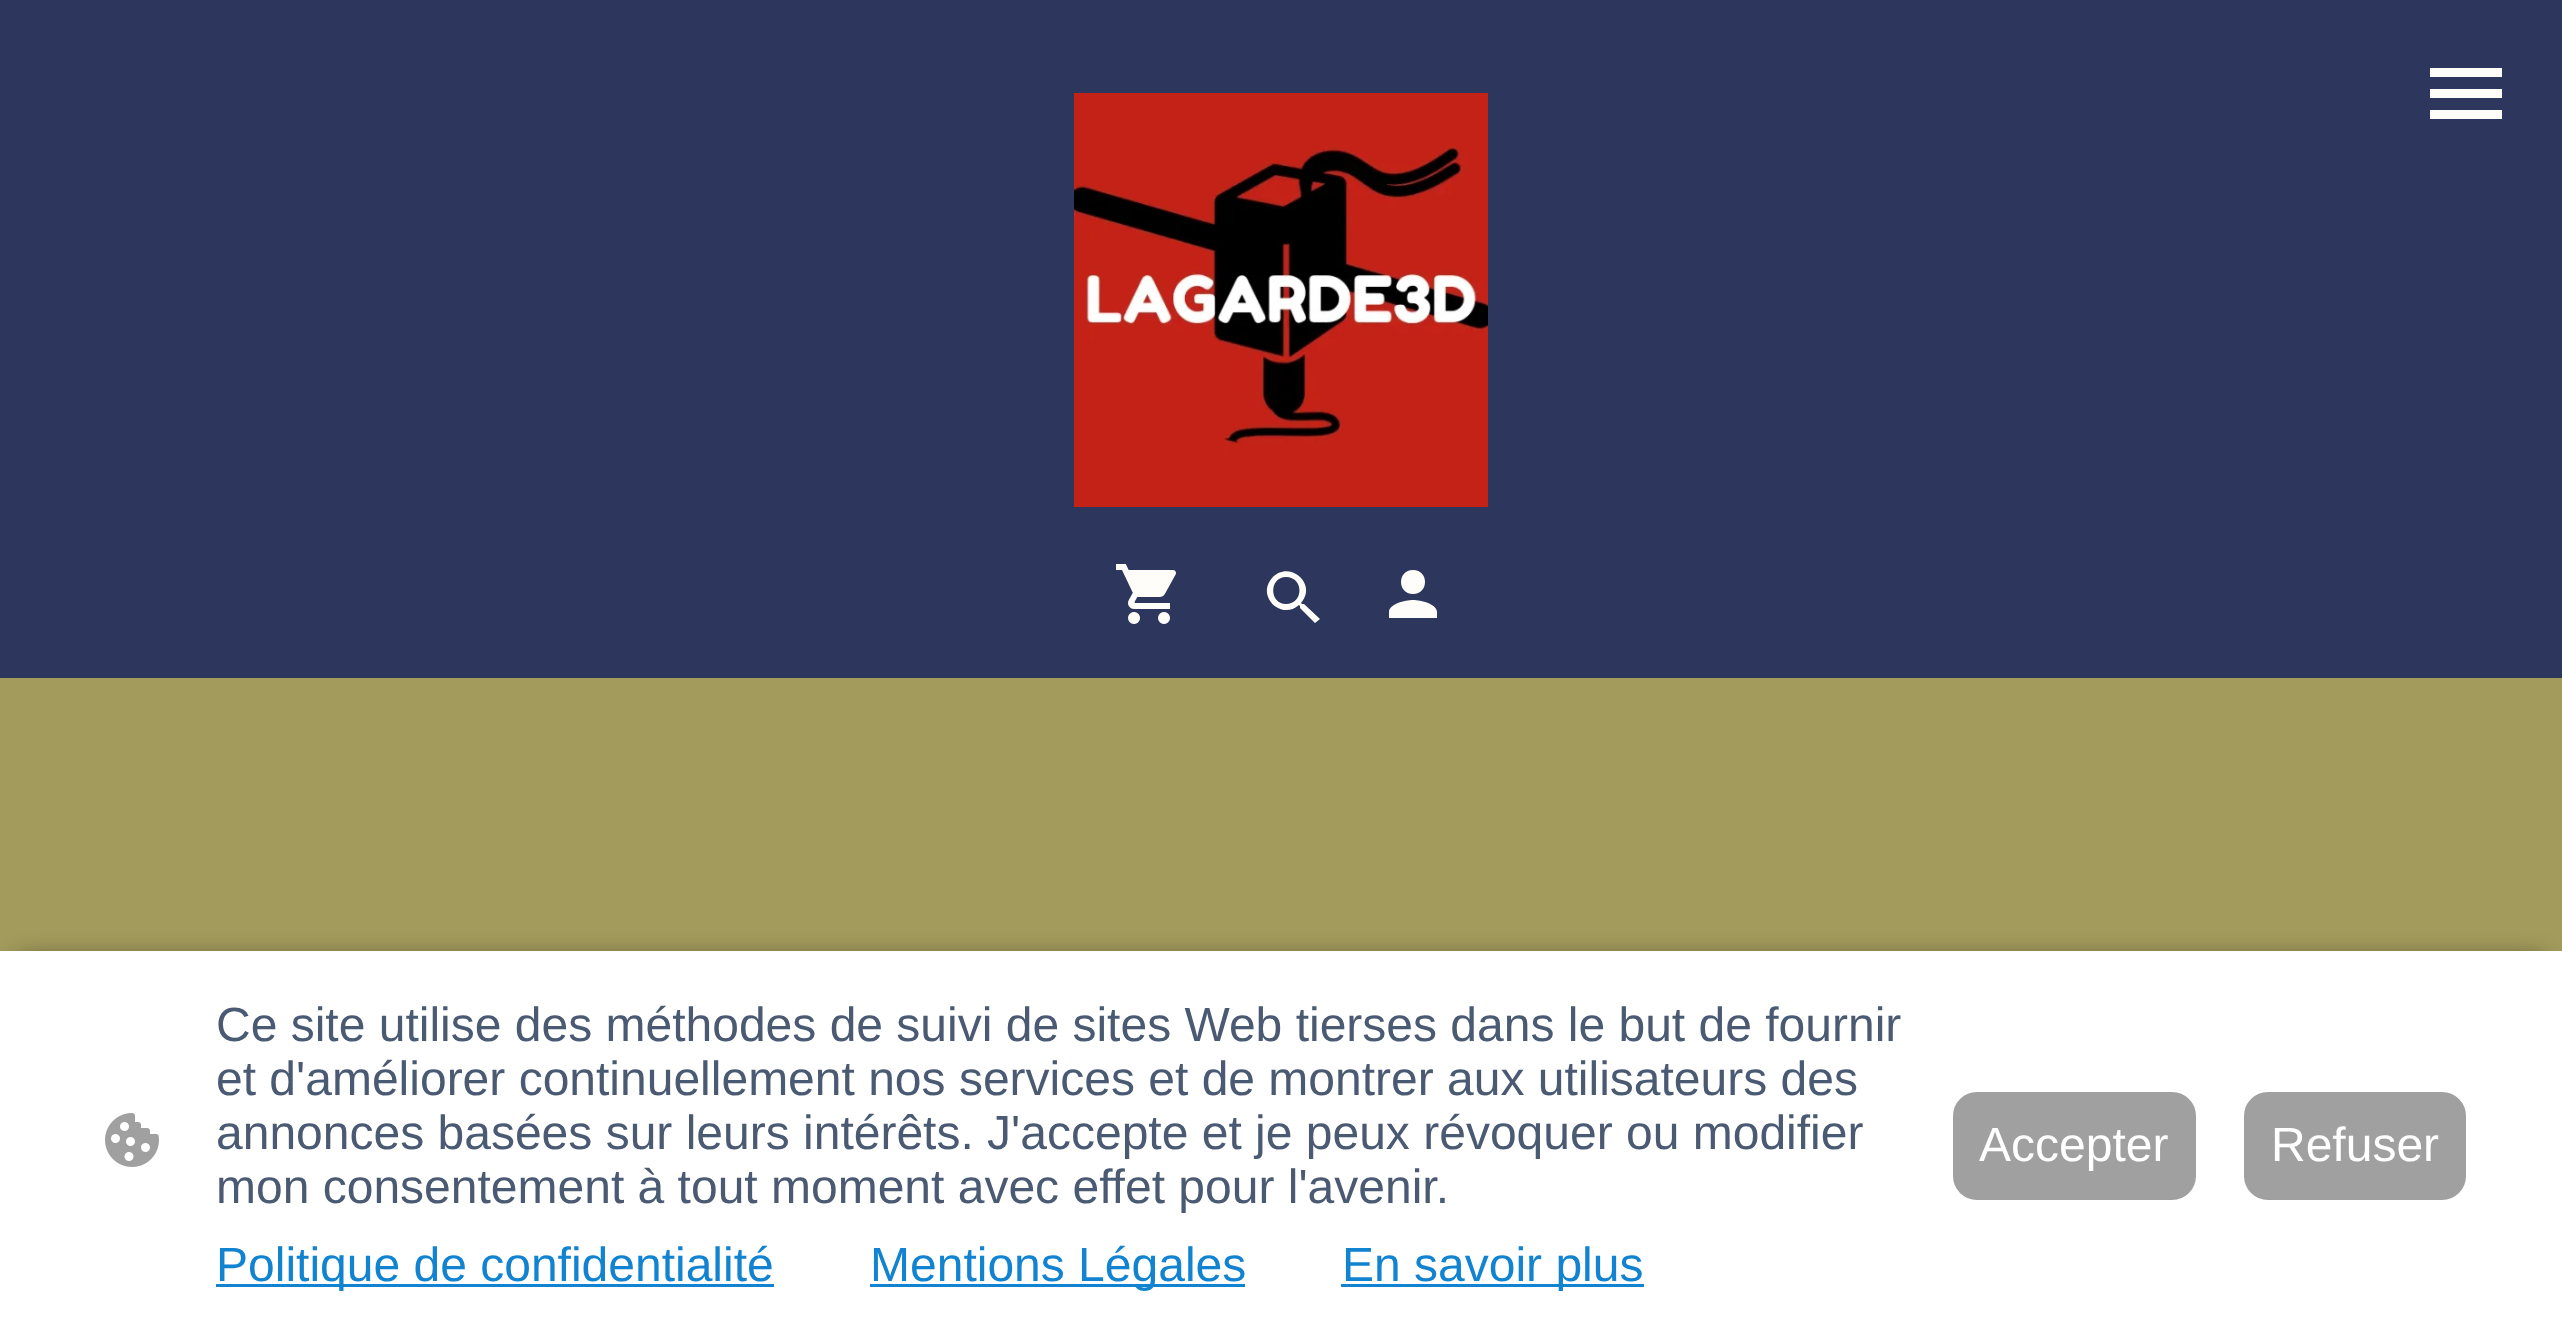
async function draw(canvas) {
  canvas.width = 2562
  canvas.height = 1339
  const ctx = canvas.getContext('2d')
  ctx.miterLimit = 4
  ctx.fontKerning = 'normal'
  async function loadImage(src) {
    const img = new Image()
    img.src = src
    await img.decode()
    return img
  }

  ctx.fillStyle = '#2d365c'
  ctx.fillRect(0, 0, 2562, 1339)
  ctx.fillStyle = '#fffdf9'
  ctx.fillRect(2430, 68, 72, 9)
  ctx.fillRect(2430, 89, 72, 9)
  ctx.fillRect(2430, 110, 72, 9)
  ctx.drawImage(await loadImage('image0.png'), 1116, 564, 60, 60)
  ctx.beginPath()
  ctx.moveTo(1304, 604)
  ctx.lineTo(1302, 604)
  ctx.lineTo(1301, 603)
  ctx.bezierCurveTo(1318, 584, 1289, 559, 1272, 578)
  ctx.bezierCurveTo(1256, 596, 1281, 621, 1299, 605)
  ctx.lineTo(1300, 606)
  ctx.lineTo(1300, 608)
  ctx.lineTo(1315, 623)
  ctx.lineTo(1320, 619)
  ctx.closePath()
  ctx.moveTo(1286, 604)
  ctx.bezierCurveTo(1269, 604, 1269, 577, 1286, 577)
  ctx.bezierCurveTo(1304, 577, 1304, 604, 1286, 604)
  ctx.closePath()
  ctx.fill()
  ctx.beginPath()
  ctx.moveTo(1413, 594)
  ctx.bezierCurveTo(1429, 594, 1429, 570, 1413, 570)
  ctx.bezierCurveTo(1397, 570, 1397, 594, 1413, 594)
  ctx.closePath()
  ctx.moveTo(1413, 600)
  ctx.bezierCurveTo(1405, 600, 1389, 604, 1389, 612)
  ctx.lineTo(1389, 618)
  ctx.lineTo(1437, 618)
  ctx.lineTo(1437, 612)
  ctx.bezierCurveTo(1437, 604, 1421, 600, 1413, 600)
  ctx.closePath()
  ctx.fill()
  ctx.drawImage(await loadImage('image1.png'), 1074, 93, 414, 414)
  ctx.fillStyle = '#a39b5c'
  ctx.fillRect(0, 678, 2562, 273)
  ctx.fillStyle = '#000000a1'
  ctx.filter = 'blur(12px)'
  ctx.beginPath()
  ctx.rect(18, 960, 2526, 354)
  ctx.fill()
  ctx.filter = 'none'
  ctx.fillStyle = '#fff'
  ctx.fillRect(0, 951, 2562, 388)
  ctx.drawImage(await loadImage('image2.png'), 105, 1113, 54, 54)
  ctx.font = '48px Liberation Sans'
  ctx.fillStyle = '#4a5a73'
  ctx.fillText('Ce site utilise des méthodes de suivi de sites Web tierses dans le but de fournir', 216, 1041)
  ctx.fillText('et d\'améliorer continuellement nos services et de montrer aux utilisateurs des', 216, 1095)
  ctx.fillText('annonces basées sur leurs intérêts. J\'accepte et je peux révoquer ou modifier', 216, 1149)
  ctx.fillText('mon consentement à tout moment avec effet pour l\'avenir.', 216, 1203)
  ctx.fillStyle = '#1183d1'
  ctx.fillRect(216, 1284, 558, 3)
  ctx.fillText('Politique de confidentialité', 216, 1281)
  ctx.fillRect(870, 1284, 375, 3)
  ctx.fillText('Mentions Légales', 870, 1281)
  ctx.fillRect(1341, 1284, 303, 3)
  ctx.fillText('En savoir plus', 1342, 1281)
  ctx.fillStyle = '#a0a0a0'
  ctx.beginPath()
  ctx.roundRect(1954.5, 1093.5, 240, 105, 22.5)
  ctx.fill()
  ctx.strokeStyle = '#a0a0a0'
  ctx.lineWidth = 3
  ctx.stroke()
  ctx.fillStyle = '#fff'
  ctx.fillText('Accepter', 1979, 1161)
  ctx.fillStyle = '#a0a0a0'
  ctx.beginPath()
  ctx.roundRect(2245.5, 1093.5, 219, 105, 22.5)
  ctx.fill()
  ctx.stroke()
  ctx.fillStyle = '#fff'
  ctx.fillText('Refuser', 2271, 1161)
}

draw(document.querySelector('canvas'))
